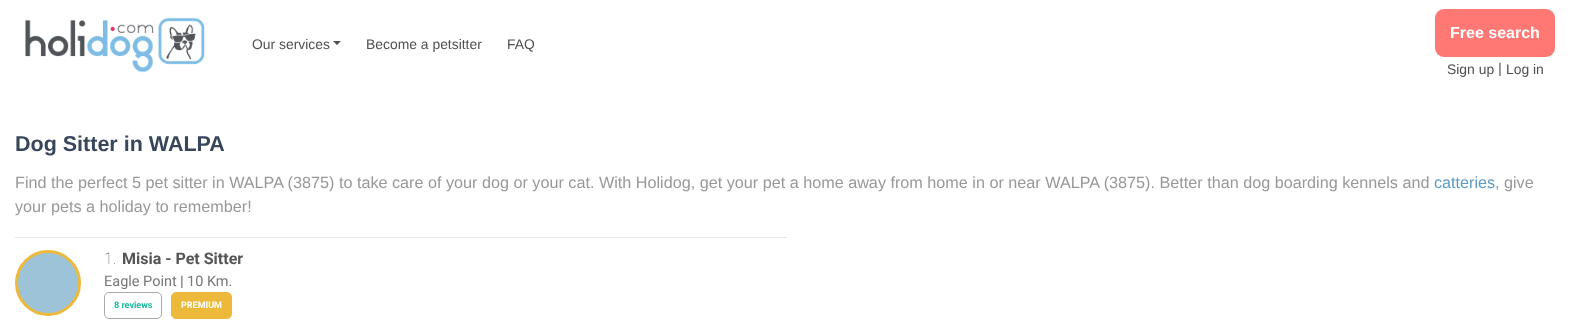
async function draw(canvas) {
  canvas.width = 1573
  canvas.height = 322
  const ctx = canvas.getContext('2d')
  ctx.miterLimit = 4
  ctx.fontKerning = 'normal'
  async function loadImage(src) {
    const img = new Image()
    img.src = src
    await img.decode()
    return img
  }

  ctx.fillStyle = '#fff'
  ctx.fillRect(0, 0, 1573, 322)
  ctx.drawImage(await loadImage('image0.png'), 25, 17, 180, 56)
  ctx.font = '13.9px Liberation Sans'
  ctx.fillStyle = '#514e4e'
  ctx.fillText('Our services', 252, 49)
  ctx.beginPath()
  ctx.moveTo(333, 41)
  ctx.lineTo(341, 41)
  ctx.lineTo(337, 45)
  ctx.closePath()
  ctx.fill()
  ctx.fillText('Become a petsitter', 366, 49)
  ctx.fillText('FAQ', 507, 49)
  ctx.fillStyle = '#ff7874'
  ctx.beginPath()
  ctx.roundRect(1435, 9, 120, 48, 9)
  ctx.fill()
  ctx.font = 'bold 16px Liberation Sans'
  ctx.fillStyle = '#fff'
  ctx.fillText('Free search', 1450, 38)
  ctx.font = '13.9px Liberation Sans'
  ctx.fillStyle = '#514e4e'
  ctx.fillText('Sign up', 1447, 74)
  ctx.font = '16px Roboto'
  ctx.fillStyle = '#555'
  ctx.fillText('|', 1498, 74)
  ctx.font = '13.9px Liberation Sans'
  ctx.fillStyle = '#514e4e'
  ctx.fillText('Log in', 1506, 74)
  ctx.font = 'bold 21.5px Liberation Sans'
  ctx.fillStyle = '#37465a'
  ctx.fillText('Dog Sitter in WALPA', 15, 151)
  ctx.font = '16.2px Liberation Sans'
  ctx.fillStyle = '#989898'
  ctx.fillText('Find the perfect 5 pet sitter in WALPA (3875) to take care of your dog or your cat. With Holidog, get your pet a home away from home in or near WALPA (3875). Better than dog boarding kennels and', 15, 188)
  ctx.fillStyle = '#5c9bc5'
  ctx.fillText('catteries', 1434, 188)
  ctx.fillStyle = '#989898'
  ctx.fillText(', give', 1495, 188)
  ctx.fillText('your pets a holiday to remember!', 15, 212)
  ctx.fillStyle = '#e5e5e5'
  ctx.fillRect(15, 237, 772, 1)
  ctx.fillStyle = '#9dc3d9'
  ctx.beginPath()
  ctx.arc(48, 283, 31.5, 0, 2 * Math.PI)
  ctx.fill()
  ctx.strokeStyle = '#edb93b'
  ctx.lineWidth = 3
  ctx.stroke()
  ctx.font = '100 16px Roboto'
  ctx.fillStyle = '#555'
  ctx.fillText('1.', 104, 264)
  ctx.font = 'bold 16px Roboto'
  ctx.fillText('Misia - Pet Sitter', 122, 264)
  ctx.font = '14.5px Roboto'
  ctx.fillStyle = '#777'
  ctx.fillText('Eagle Point', 104, 286)
  ctx.font = 'bold 14.5px Roboto'
  ctx.fillText('|', 180, 286)
  ctx.font = '14.5px Roboto'
  ctx.fillText('10 Km.', 187, 286)
  ctx.beginPath()
  ctx.roundRect(104.5, 292.5, 57, 26, 4.5)
  ctx.strokeStyle = '#aaa'
  ctx.lineWidth = 1
  ctx.stroke()
  ctx.font = 'bold 9px Roboto'
  ctx.fillStyle = '#1cbb9c'
  ctx.fillText('8 reviews', 114, 308)
  ctx.fillStyle = '#edb93b'
  ctx.beginPath()
  ctx.roundRect(171.5, 292.5, 60, 26, 4.5)
  ctx.fill()
  ctx.strokeStyle = '#edb93b'
  ctx.stroke()
  ctx.fillStyle = '#fff'
  ctx.fillText('PREMIUM', 181, 308)
}

draw(document.querySelector('canvas'))
